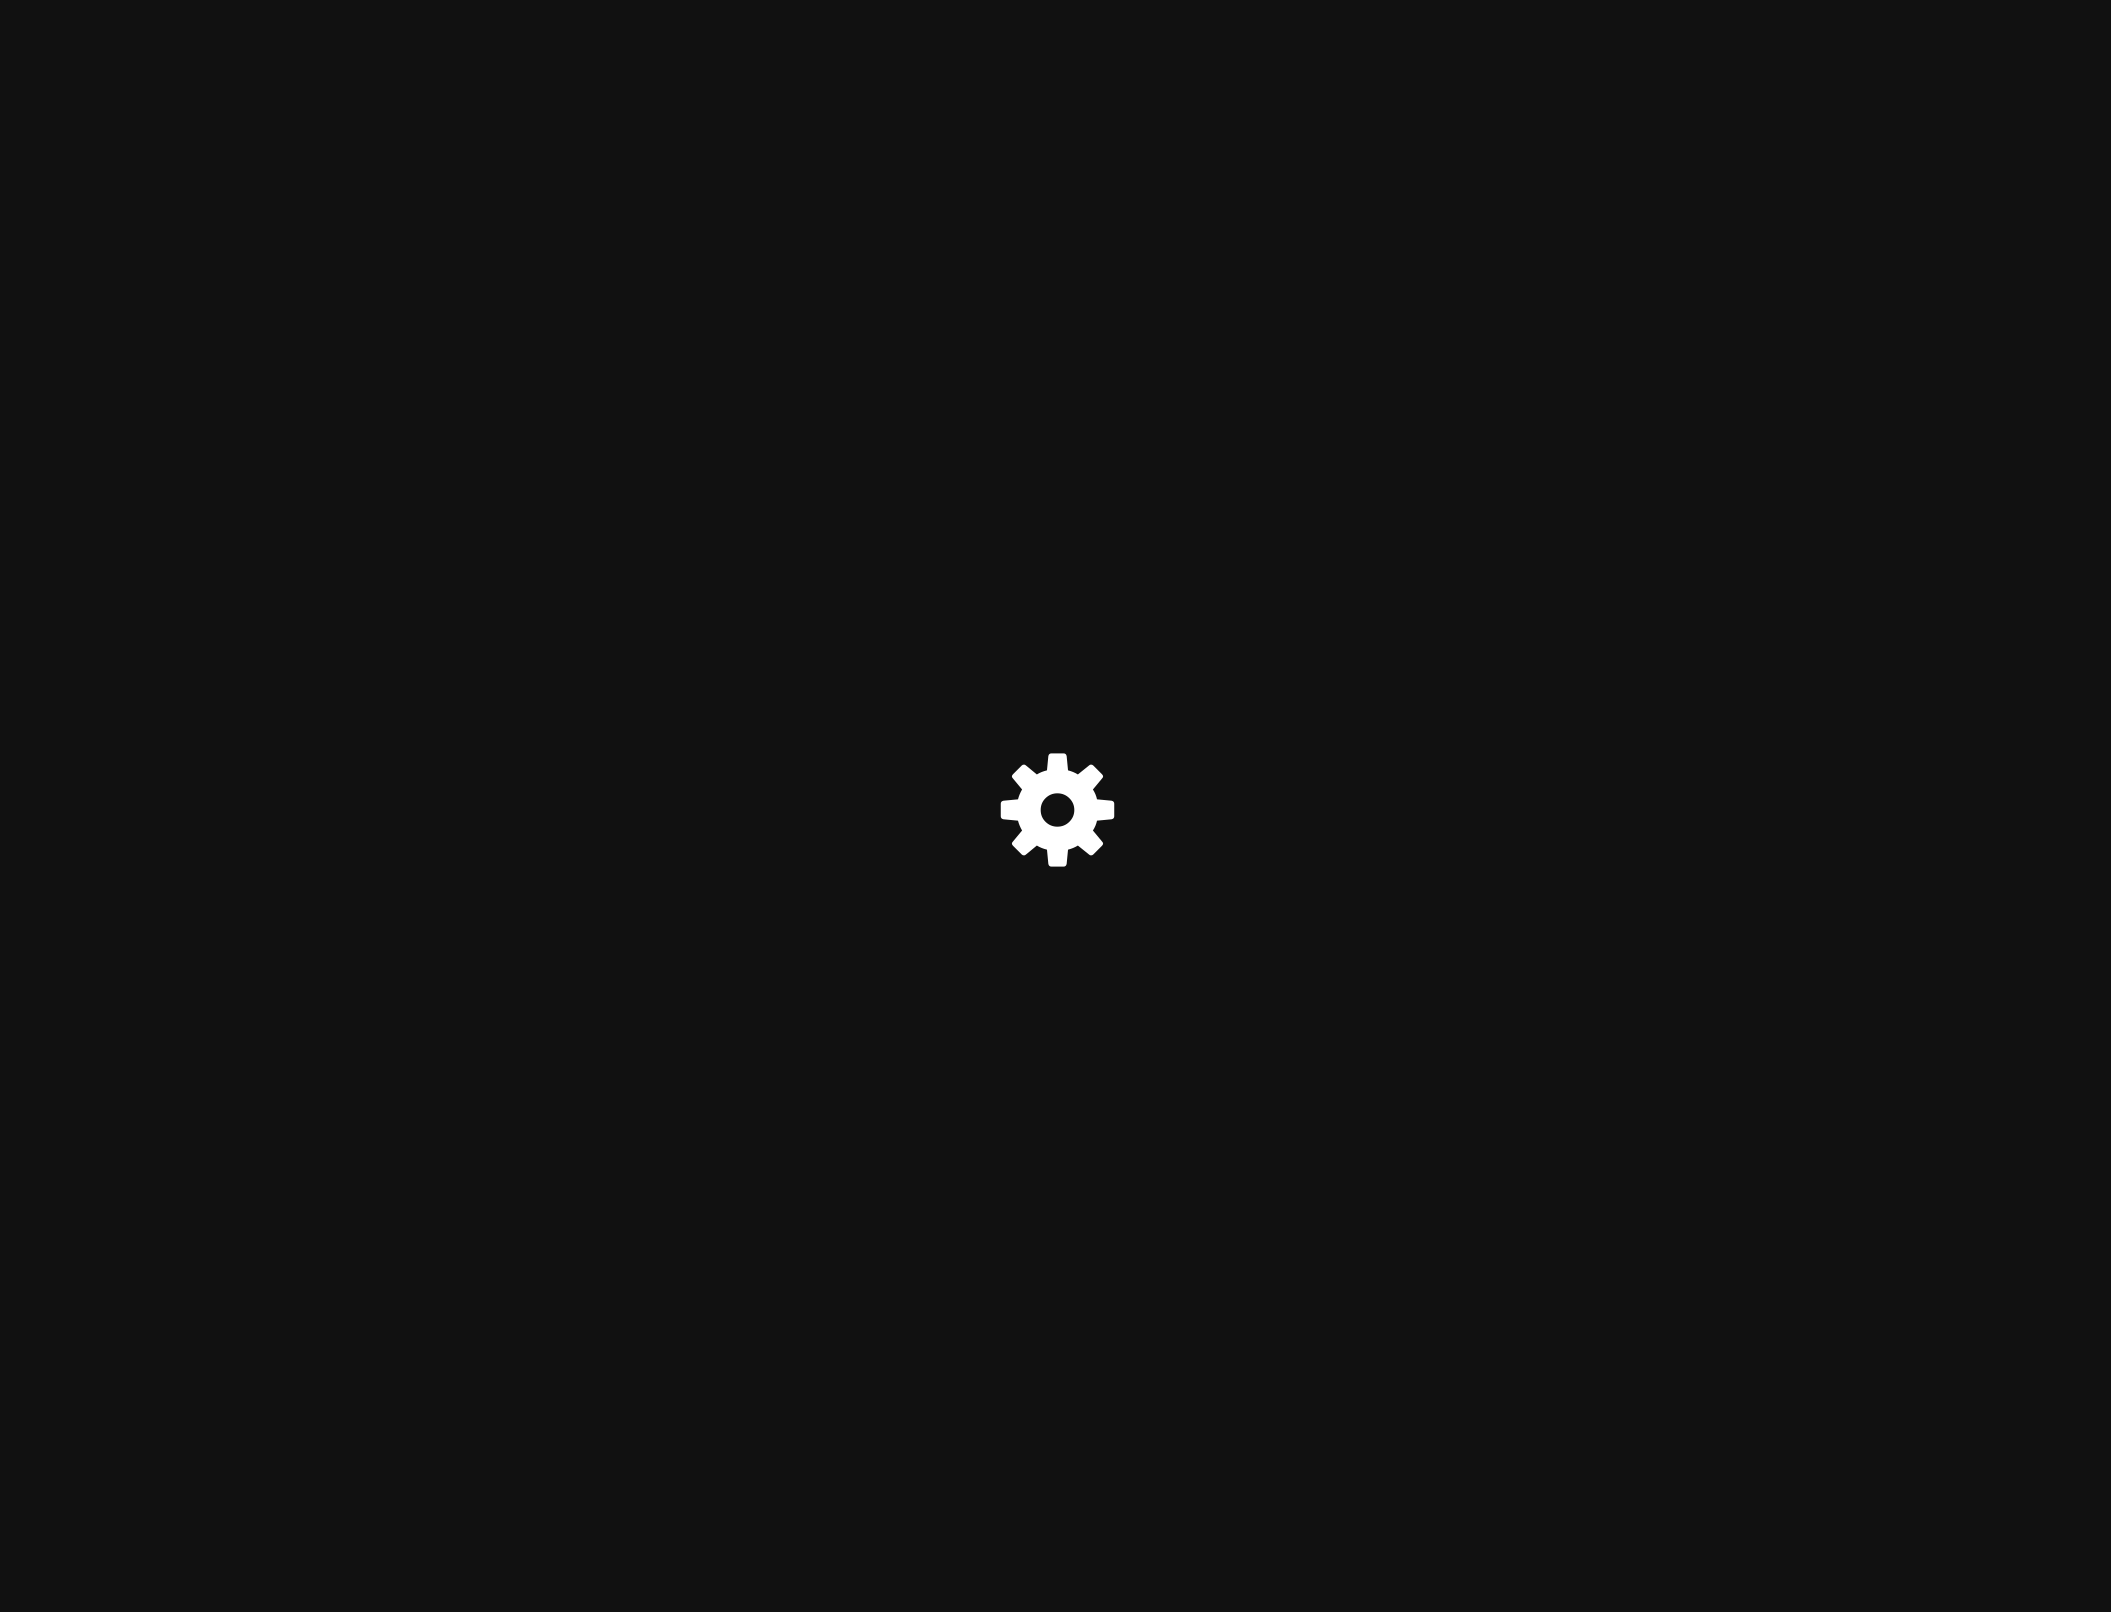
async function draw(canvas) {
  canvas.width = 2111
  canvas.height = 1612
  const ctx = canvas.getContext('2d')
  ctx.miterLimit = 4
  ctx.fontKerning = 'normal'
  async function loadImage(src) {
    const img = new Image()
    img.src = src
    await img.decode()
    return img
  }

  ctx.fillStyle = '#111'
  ctx.fillRect(0, 0, 2111, 1612)
  ctx.drawImage(await loadImage('image0.png'), 1000, 753, 115, 114)
}

draw(document.querySelector('canvas'))
